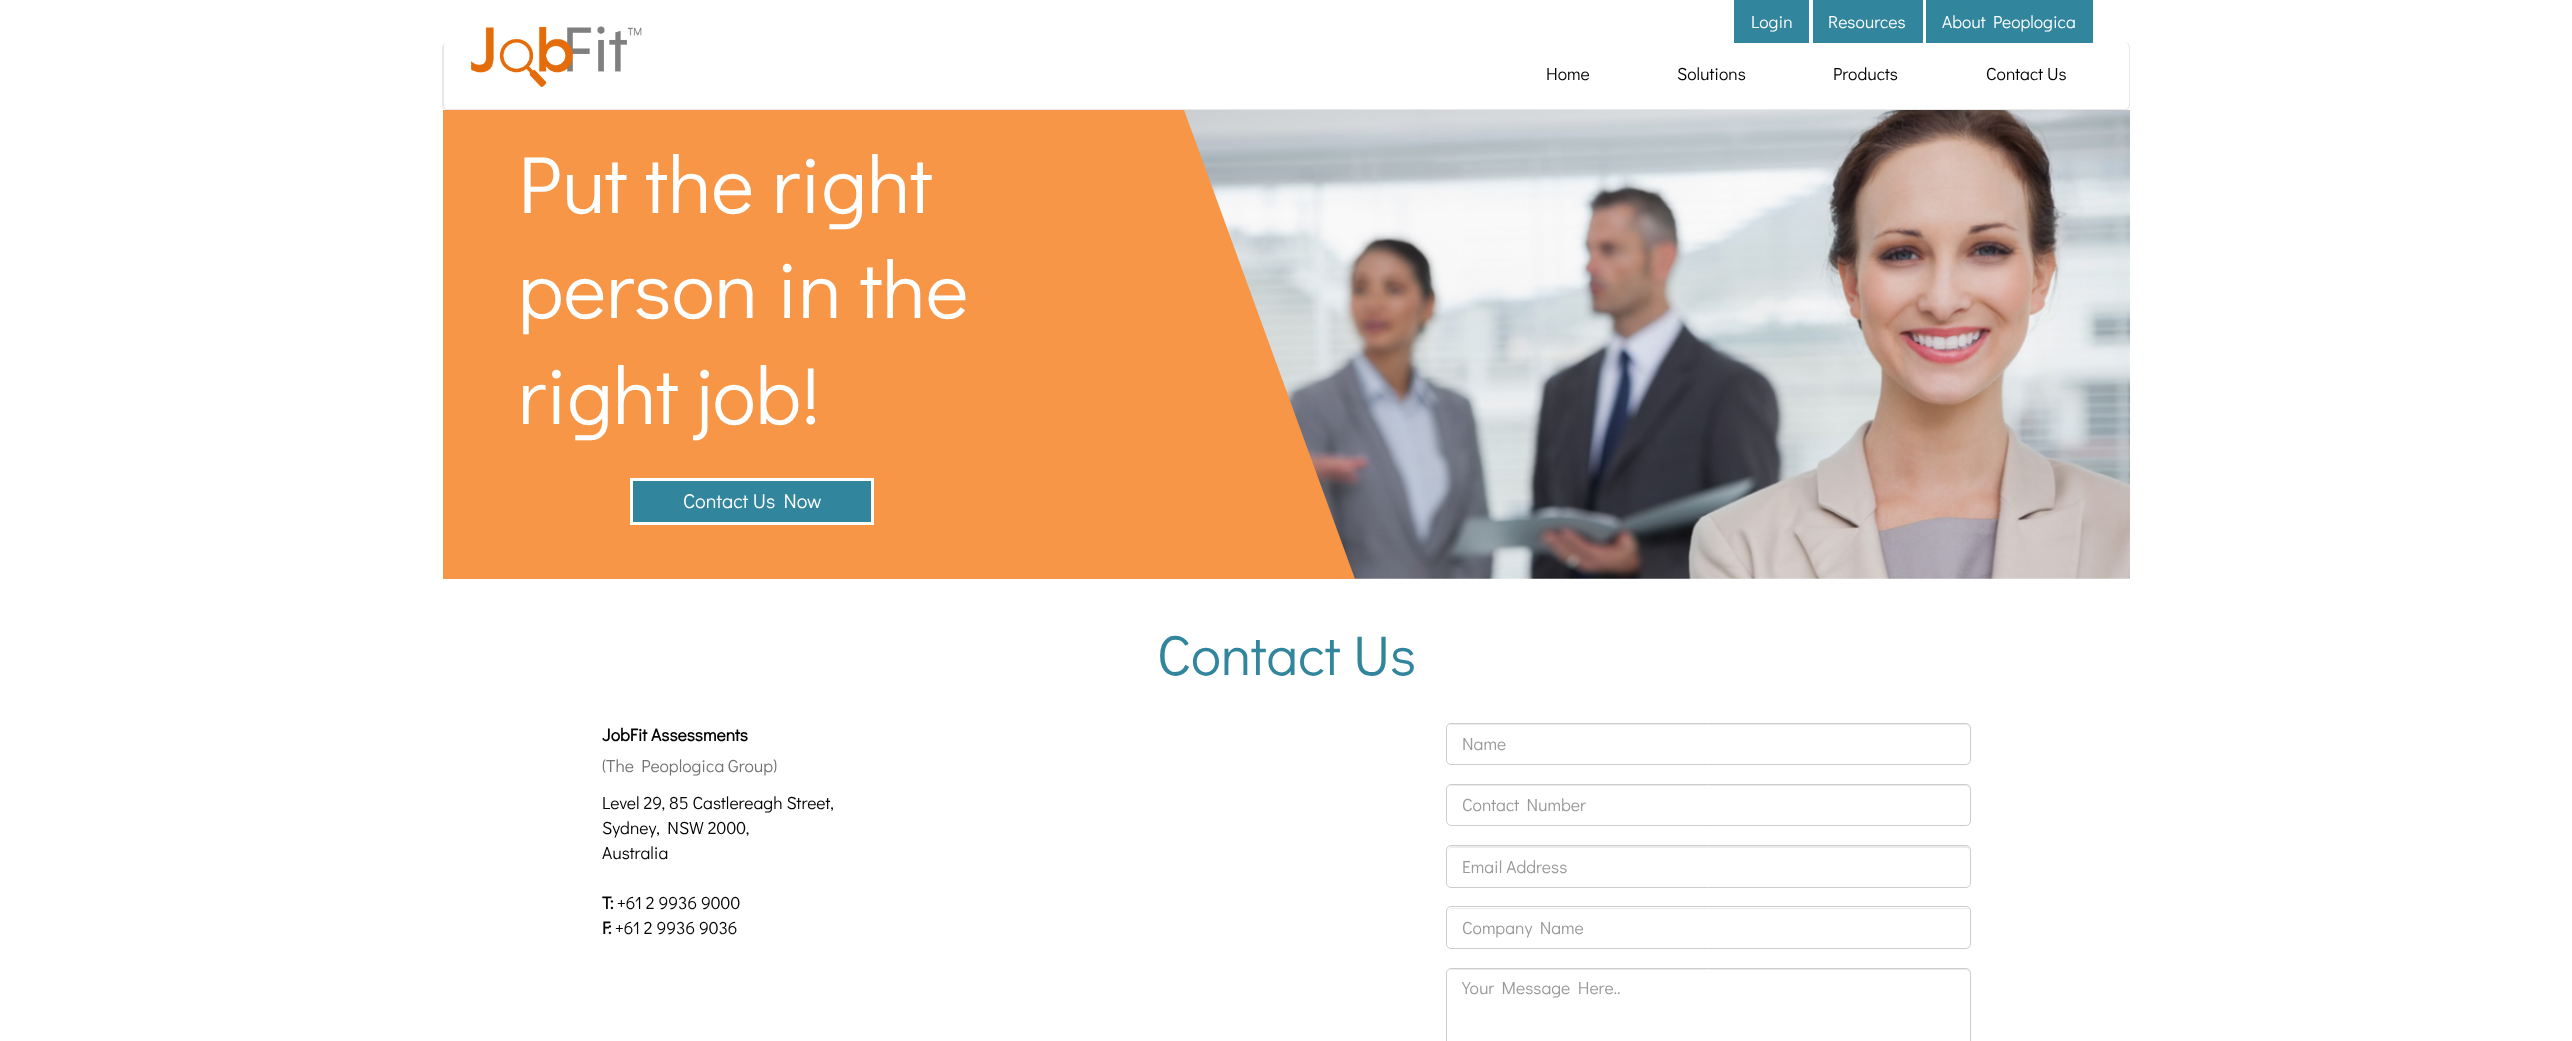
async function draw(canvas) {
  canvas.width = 2572
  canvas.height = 1041
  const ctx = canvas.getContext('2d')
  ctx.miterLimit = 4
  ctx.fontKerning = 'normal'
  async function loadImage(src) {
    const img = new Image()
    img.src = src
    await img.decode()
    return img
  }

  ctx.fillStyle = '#fff'
  ctx.fillRect(0, 0, 2572, 1041)
  ctx.fillStyle = '#31859c'
  ctx.fillRect(1734, 0, 75, 43)
  ctx.font = '17.5px Didact Gothic'
  ctx.fillStyle = '#fff'
  ctx.fillText('Login', 1751, 28)
  ctx.fillStyle = '#31859c'
  ctx.fillRect(1813, 0, 110, 43)
  ctx.fillStyle = '#fff'
  ctx.fillText('Resources', 1828, 28)
  ctx.fillStyle = '#31859c'
  ctx.fillRect(1926, 0, 167, 43)
  ctx.fillStyle = '#fff'
  ctx.fillText('About Peoplogica', 1942, 28)
  ctx.fillStyle = '#e7e7e7'
  ctx.beginPath()
  ctx.moveTo(448, 42)
  ctx.lineTo(2125, 42)
  ctx.bezierCurveTo(2128, 42, 2130, 45, 2130, 48)
  ctx.lineTo(2130, 105)
  ctx.bezierCurveTo(2130, 108, 2128, 110, 2125, 110)
  ctx.lineTo(448, 110)
  ctx.bezierCurveTo(445, 110, 442, 108, 442, 105)
  ctx.lineTo(442, 48)
  ctx.bezierCurveTo(442, 45, 445, 42, 448, 42)
  ctx.closePath()
  ctx.moveTo(448, 42)
  ctx.lineTo(2125, 42)
  ctx.bezierCurveTo(2127, 42, 2129, 45, 2129, 48)
  ctx.lineTo(2129, 105)
  ctx.bezierCurveTo(2129, 107, 2127, 109, 2125, 109)
  ctx.lineTo(448, 109)
  ctx.bezierCurveTo(445, 109, 444, 107, 444, 105)
  ctx.lineTo(444, 48)
  ctx.bezierCurveTo(444, 45, 445, 42, 448, 42)
  ctx.closePath()
  ctx.fill('evenodd')
  ctx.drawImage(await loadImage('image0.png'), 471, 26, 171, 61)
  ctx.fillStyle = '#020202'
  ctx.fillText('Home', 1546, 80)
  ctx.fillText('Solutions', 1677, 80)
  ctx.fillText('Products', 1833, 80)
  ctx.fillText('Contact Us', 1986, 80)
  ctx.fillStyle = '#f79646'
  ctx.fillRect(443, 110, 575, 469)
  ctx.drawImage(await loadImage('image1.png'), 1184, 110, 946, 469)
  ctx.beginPath()
  ctx.moveTo(847, 110)
  ctx.lineTo(1184, 110)
  ctx.lineTo(1355, 579)
  ctx.lineTo(1018, 579)
  ctx.closePath()
  ctx.fill()
  ctx.font = '81.25px Didact Gothic'
  ctx.fillStyle = '#fff'
  ctx.fillText('Put the right', 518, 213)
  ctx.fillText('person in the', 518, 318)
  ctx.fillText('right job!', 518, 424)
  ctx.fillStyle = '#31859c'
  ctx.beginPath()
  ctx.rect(631.5, 479.5, 241, 44)
  ctx.fill()
  ctx.strokeStyle = '#fff'
  ctx.lineWidth = 3
  ctx.stroke()
  ctx.font = '20px Didact Gothic'
  ctx.fillStyle = '#fff'
  ctx.fillText('Contact Us Now', 683, 508)
  ctx.font = '56.25px Didact Gothic'
  ctx.fillStyle = '#31859c'
  ctx.fillText('Contact Us', 1157, 675)
  ctx.font = 'bold 17.5px Didact Gothic'
  ctx.fillStyle = '#020202'
  ctx.fillText('JobFit Assessments', 602, 741)
  ctx.font = '17.5px Didact Gothic'
  ctx.fillStyle = '#737373'
  ctx.fillText('(The Peoplogica Group)', 602, 772)
  ctx.fillStyle = '#020202'
  ctx.fillText('Level 29, 85 Castlereagh Street,', 602, 809)
  ctx.fillText('Sydney, NSW 2000,', 602, 834)
  ctx.fillText('Australia', 602, 859)
  ctx.font = 'bold 17.5px Didact Gothic'
  ctx.fillText('T:', 602, 909)
  ctx.font = '17.5px Didact Gothic'
  ctx.fillText('+61 2 9936 9000', 617, 909)
  ctx.font = 'bold 17.5px Didact Gothic'
  ctx.fillText('F:', 602, 934)
  ctx.font = '17.5px Didact Gothic'
  ctx.fillText('+61 2 9936 9036', 615, 934)
  ctx.fillStyle = '#ececec'
  ctx.beginPath()
  ctx.moveTo(1451, 725)
  ctx.lineTo(1966, 725)
  ctx.bezierCurveTo(1968, 725, 1970, 727, 1970, 729)
  ctx.lineTo(1970, 728)
  ctx.bezierCurveTo(1970, 726, 1968, 724, 1966, 724)
  ctx.lineTo(1452, 724)
  ctx.bezierCurveTo(1450, 724, 1448, 726, 1448, 728)
  ctx.lineTo(1448, 729)
  ctx.bezierCurveTo(1448, 727, 1449, 725, 1451, 725)
  ctx.closePath()
  ctx.fill()
  ctx.beginPath()
  ctx.roundRect(1446.5, 723.5, 524, 41, 4.5)
  ctx.strokeStyle = '#ccc'
  ctx.lineWidth = 1
  ctx.stroke()
  ctx.fillStyle = '#999'
  ctx.fillText('Name', 1462, 750)
  ctx.fillStyle = '#ececec'
  ctx.beginPath()
  ctx.moveTo(1451, 786)
  ctx.lineTo(1966, 786)
  ctx.bezierCurveTo(1968, 786, 1970, 788, 1970, 790)
  ctx.lineTo(1970, 789)
  ctx.bezierCurveTo(1970, 787, 1968, 785, 1966, 785)
  ctx.lineTo(1452, 785)
  ctx.bezierCurveTo(1450, 785, 1448, 787, 1448, 789)
  ctx.lineTo(1448, 790)
  ctx.bezierCurveTo(1448, 788, 1449, 786, 1451, 786)
  ctx.closePath()
  ctx.fill()
  ctx.beginPath()
  ctx.roundRect(1446.5, 784.5, 524, 41, 4.5)
  ctx.stroke()
  ctx.fillStyle = '#999'
  ctx.fillText('Contact Number', 1462, 811)
  ctx.fillStyle = '#ececec'
  ctx.beginPath()
  ctx.moveTo(1451, 848)
  ctx.lineTo(1966, 848)
  ctx.bezierCurveTo(1968, 848, 1970, 849, 1970, 851)
  ctx.lineTo(1970, 850)
  ctx.bezierCurveTo(1970, 848, 1968, 846, 1966, 846)
  ctx.lineTo(1452, 846)
  ctx.bezierCurveTo(1450, 846, 1448, 848, 1448, 850)
  ctx.lineTo(1448, 851)
  ctx.bezierCurveTo(1448, 849, 1449, 848, 1451, 848)
  ctx.closePath()
  ctx.fill()
  ctx.beginPath()
  ctx.roundRect(1446.5, 845.5, 524, 42, 4.5)
  ctx.stroke()
  ctx.fillStyle = '#999'
  ctx.fillText('Email Address', 1462, 873)
  ctx.fillStyle = '#ececec'
  ctx.beginPath()
  ctx.moveTo(1451, 909)
  ctx.lineTo(1966, 909)
  ctx.bezierCurveTo(1968, 909, 1970, 910, 1970, 912)
  ctx.bezierCurveTo(1970, 910, 1968, 908, 1966, 908)
  ctx.lineTo(1452, 908)
  ctx.bezierCurveTo(1451, 908, 1449, 909, 1449, 910)
  ctx.closePath()
  ctx.fill()
  ctx.beginPath()
  ctx.roundRect(1446.5, 906.5, 524, 42, 4.5)
  ctx.stroke()
  ctx.fillStyle = '#999'
  ctx.fillText('Company Name', 1462, 934)
  ctx.fillStyle = '#ececec'
  ctx.beginPath()
  ctx.moveTo(1451, 970)
  ctx.lineTo(1966, 970)
  ctx.bezierCurveTo(1968, 970, 1970, 972, 1970, 974)
  ctx.lineTo(1970, 973)
  ctx.bezierCurveTo(1970, 971, 1968, 969, 1966, 969)
  ctx.lineTo(1452, 969)
  ctx.bezierCurveTo(1450, 969, 1448, 971, 1448, 973)
  ctx.lineTo(1448, 974)
  ctx.bezierCurveTo(1448, 972, 1449, 970, 1451, 970)
  ctx.closePath()
  ctx.fill()
  ctx.beginPath()
  ctx.roundRect(1446.5, 968.5, 524, 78, 4.5)
  ctx.stroke()
  ctx.fillStyle = '#999'
  ctx.fillText('Your Message Here..', 1462, 994)
}

draw(document.querySelector('canvas'))
